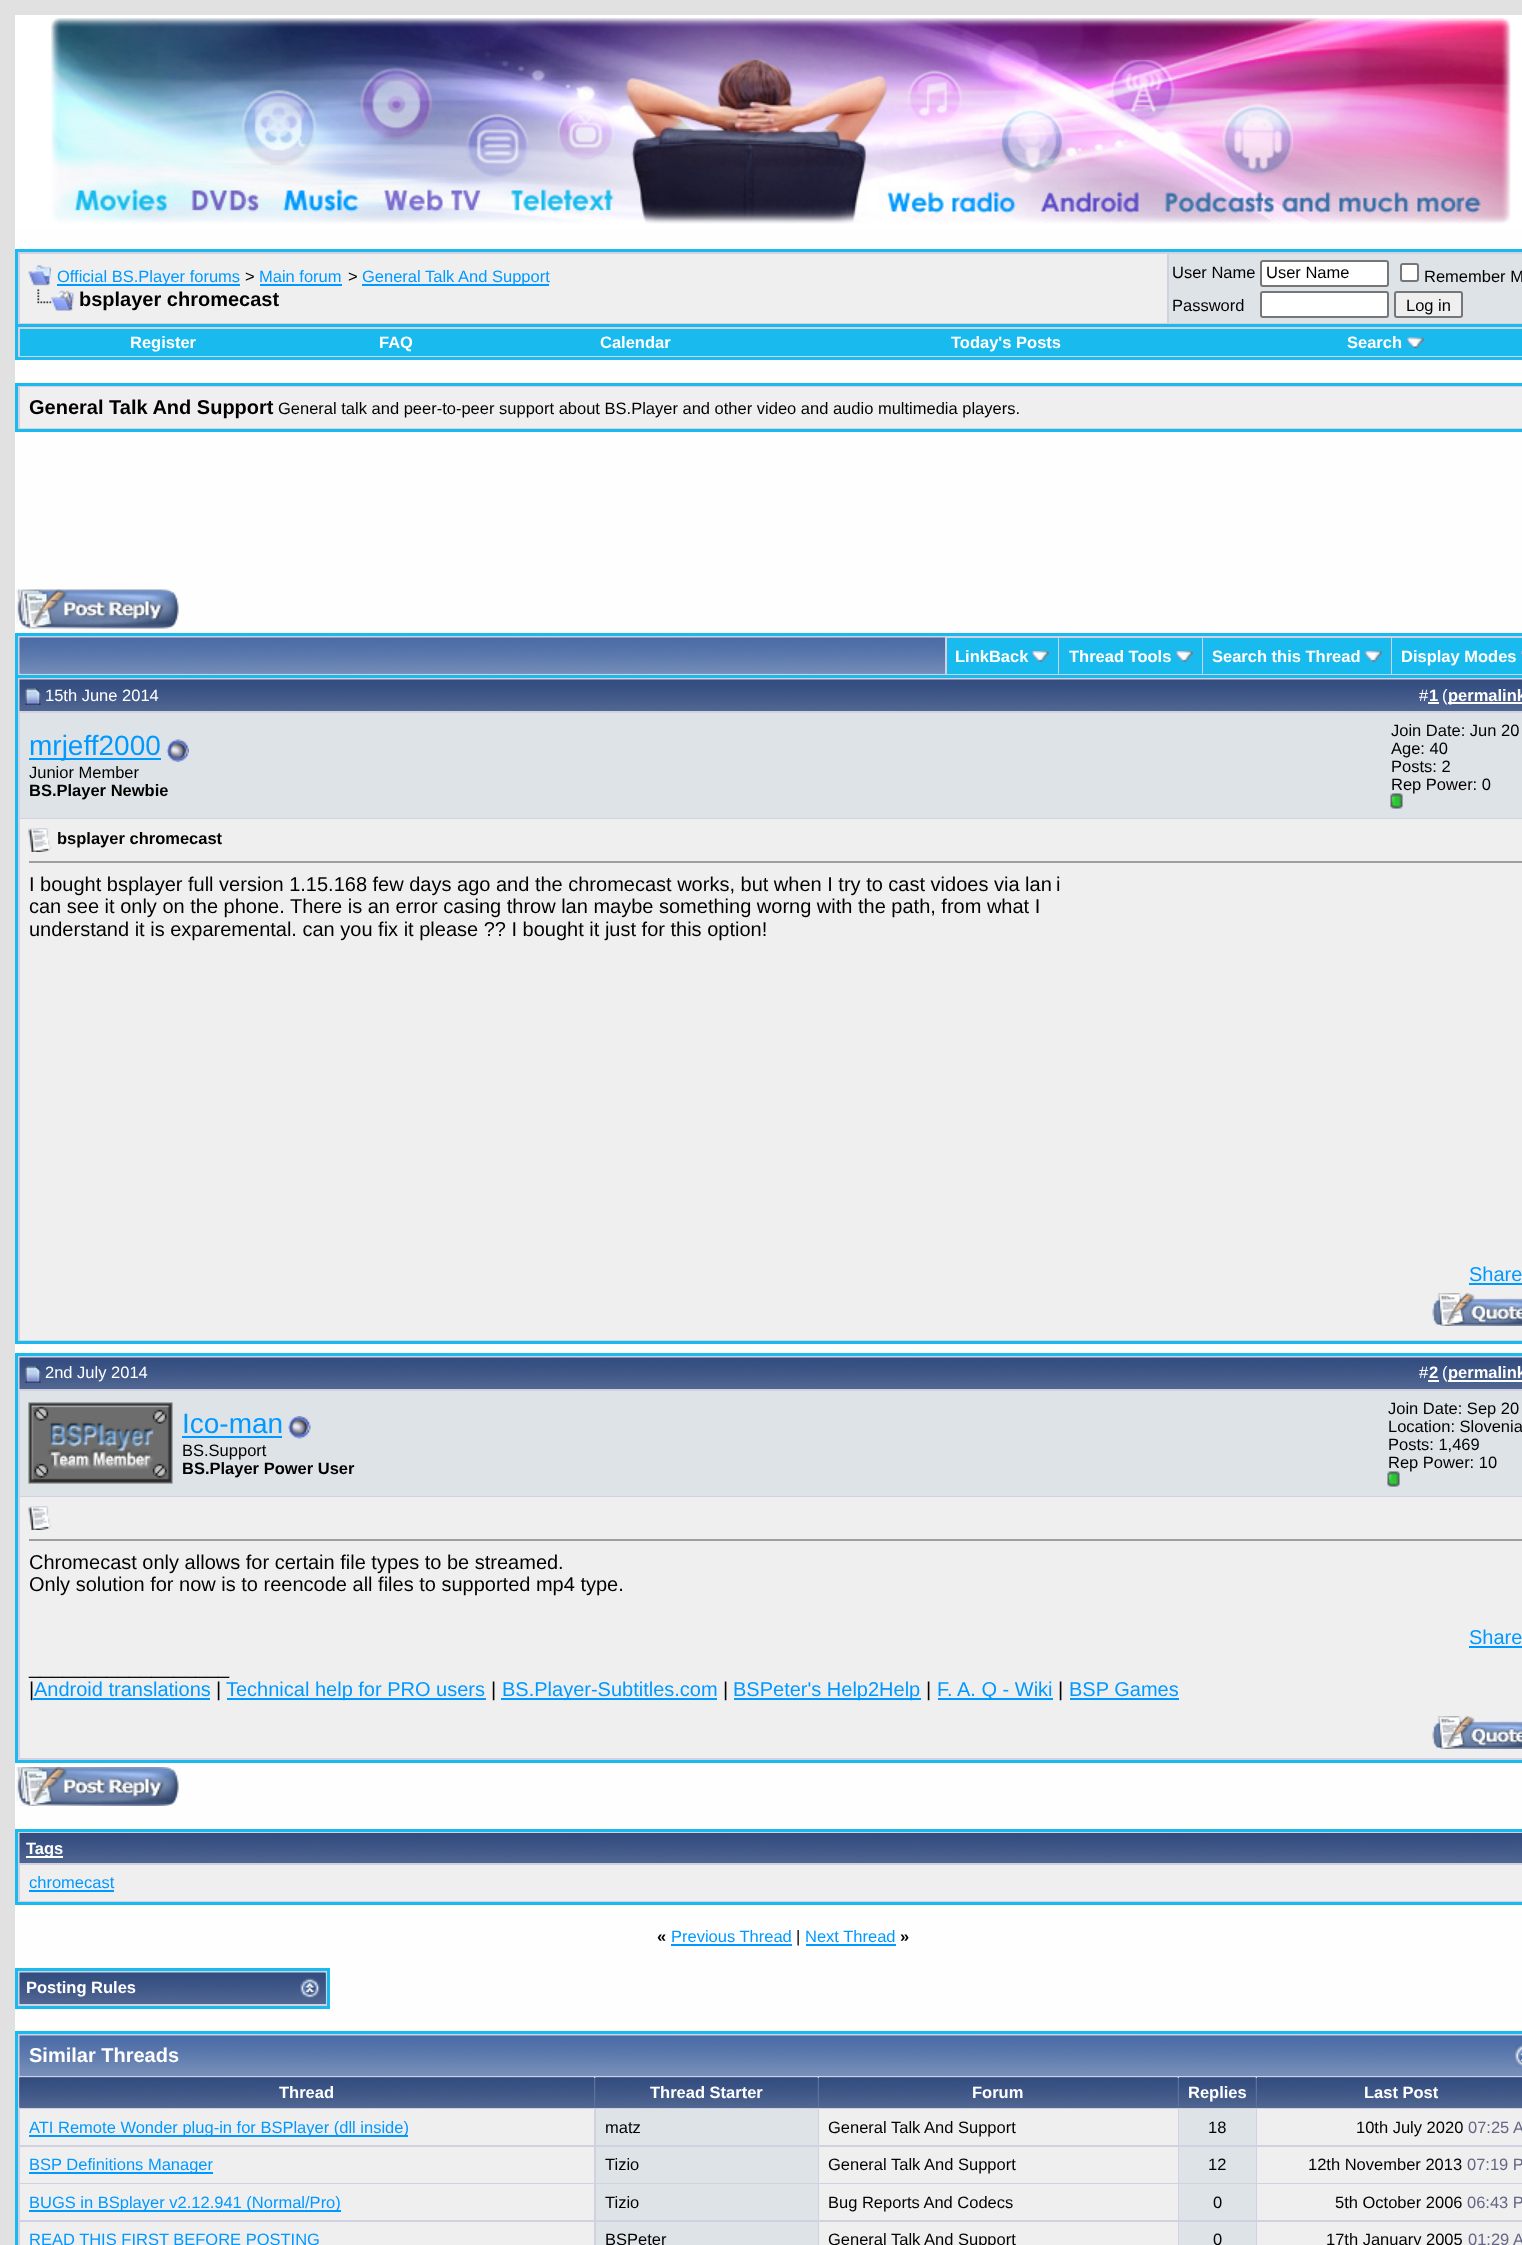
async function draw(canvas) {
  canvas.width = 1522
  canvas.height = 2245
  const ctx = canvas.getContext('2d')
  ctx.miterLimit = 4
  ctx.fontKerning = 'normal'
  async function loadImage(src) {
    const img = new Image()
    img.src = src
    await img.decode()
    return img
  }

  ctx.fillStyle = '#e1e1e2'
  ctx.fillRect(0, 0, 1522, 2245)
  ctx.fillStyle = '#fff'
  ctx.fillRect(15, 15, 1507, 212)
  ctx.drawImage(await loadImage('image0.png'), 51, 18, 1460, 206)
  ctx.fillStyle = '#fefefe'
  ctx.fillRect(15, 227, 1507, 406)
  ctx.fillStyle = '#d1d1e1'
  ctx.beginPath()
  ctx.rect(16.5, 250.5, 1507, 75)
  ctx.fill()
  ctx.strokeStyle = '#19baed'
  ctx.lineWidth = 3
  ctx.stroke()
  ctx.fillStyle = '#efefef'
  ctx.fillRect(20, 254, 1147, 69)
  ctx.drawImage(await loadImage('image1.png'), 28, 265, 23, 21)
  ctx.fillStyle = '#09f'
  ctx.fillRect(57, 284, 183, 2)
  ctx.font = '16.5px Liberation Sans'
  ctx.fillText('Official BS.Player forums', 57, 282)
  ctx.fillStyle = '#000'
  ctx.fillText('>', 245, 282)
  ctx.fillStyle = '#09f'
  ctx.fillText('Main forum', 259, 282)
  ctx.fillRect(260, 284, 82, 2)
  ctx.fillStyle = '#000'
  ctx.fillText('>', 348, 282)
  ctx.fillStyle = '#09f'
  ctx.fillRect(362, 284, 187, 2)
  ctx.fillText('General Talk And Support', 362, 282)
  ctx.drawImage(await loadImage('image2.png'), 37, 289, 37, 22)
  ctx.font = 'bold 20px Liberation Sans'
  ctx.fillStyle = '#000'
  ctx.fillText('bsplayer chromecast', 79, 306)
  ctx.fillStyle = '#dee3e7'
  ctx.fillRect(1169, 254, 353, 69)
  ctx.font = '16.5px Liberation Sans'
  ctx.fillStyle = '#000'
  ctx.fillText('User Name', 1172, 278)
  ctx.fillStyle = '#fff'
  ctx.beginPath()
  ctx.roundRect(1261, 261, 127, 25, 2)
  ctx.fill()
  ctx.strokeStyle = '#767676'
  ctx.lineWidth = 2
  ctx.stroke()
  ctx.fillStyle = '#000'
  ctx.fillText('User Name', 1266, 278)
  ctx.fillStyle = '#fff'
  ctx.beginPath()
  ctx.roundRect(1401, 264, 17, 17, 2)
  ctx.fill()
  ctx.stroke()
  ctx.fillStyle = '#000'
  ctx.fillText('Remember M', 1424, 282)
  ctx.fillText('Password', 1172, 311)
  ctx.fillStyle = '#fff'
  ctx.beginPath()
  ctx.roundRect(1261, 292, 127, 25, 2)
  ctx.fill()
  ctx.stroke()
  ctx.fillStyle = '#efefef'
  ctx.beginPath()
  ctx.roundRect(1395, 292, 67, 25, 2)
  ctx.fill()
  ctx.stroke()
  ctx.fillStyle = '#000'
  ctx.fillText('Log in', 1406, 311)
  ctx.fillStyle = '#d1d1e1'
  ctx.fillRect(18, 327, 1504, 30)
  ctx.fillStyle = '#19baed'
  ctx.fillRect(15, 357, 1507, 3)
  ctx.fillRect(15, 327, 3, 33)
  ctx.fillRect(20, 329, 1502, 27)
  ctx.font = 'bold 16.5px Liberation Sans'
  ctx.fillStyle = '#fff'
  ctx.fillText('Register', 130, 348)
  ctx.fillText('FAQ', 379, 348)
  ctx.fillText('Calendar', 600, 348)
  ctx.fillText('Today\'s Posts', 951, 348)
  ctx.fillText('Search', 1347, 348)
  ctx.drawImage(await loadImage('image3.png'), 1407, 337, 17, 11)
  ctx.fillStyle = '#d1d1e1'
  ctx.beginPath()
  ctx.rect(16.5, 384.5, 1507, 46)
  ctx.fill()
  ctx.strokeStyle = '#19baed'
  ctx.lineWidth = 3
  ctx.stroke()
  ctx.fillStyle = '#efefef'
  ctx.fillRect(20, 387, 1502, 41)
  ctx.font = 'bold 20px Liberation Sans'
  ctx.fillStyle = '#000'
  ctx.fillText('General Talk And Support', 29, 414)
  ctx.font = '16.5px Liberation Sans'
  ctx.fillText('General talk and peer-to-peer support about BS.Player and other video and audio multimedia players.', 278, 414)
  ctx.drawImage(await loadImage('image4.png'), 16, 589, 163, 40)
  ctx.fillStyle = '#d1d1e1'
  ctx.fillRect(18, 636, 1504, 39)
  ctx.fillStyle = '#19baed'
  ctx.fillRect(15, 633, 1507, 3)
  ctx.fillRect(15, 633, 3, 42)
  ctx.fillStyle = '#869bbf'
  ctx.fillRect(20, 673, 925, 1)
  ctx.drawImage(await loadImage('image5.png'), 19, 637, 926, 37)
  ctx.fillStyle = '#19baed'
  ctx.fillRect(947, 638, 111, 36)
  ctx.font = 'bold 16.5px Liberation Sans'
  ctx.fillStyle = '#fff'
  ctx.fillText('LinkBack', 955, 662)
  ctx.drawImage(await loadImage('image6.png'), 1032, 651, 17, 11)
  ctx.fillStyle = '#19baed'
  ctx.fillRect(1059, 638, 143, 36)
  ctx.fillStyle = '#fff'
  ctx.fillText('Thread Tools', 1069, 662)
  ctx.drawImage(await loadImage('image6.png'), 1176, 651, 17, 11)
  ctx.fillStyle = '#19baed'
  ctx.fillRect(1203, 638, 188, 36)
  ctx.fillStyle = '#fff'
  ctx.fillText('Search this Thread', 1212, 662)
  ctx.drawImage(await loadImage('image6.png'), 1365, 651, 17, 11)
  ctx.fillStyle = '#19baed'
  ctx.fillRect(1392, 638, 130, 36)
  ctx.fillStyle = '#fff'
  ctx.fillText('Display Modes', 1401, 662)
  ctx.drawImage(await loadImage('image7.png'), 1521, 651, 1, 5)
  ctx.fillStyle = '#fefefe'
  ctx.fillRect(15, 1344, 1507, 9)
  ctx.fillStyle = '#d1d1e1'
  ctx.beginPath()
  ctx.rect(16.5, 676.5, 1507, 666)
  ctx.fill()
  ctx.stroke()
  ctx.drawImage(await loadImage('image8.png'), 19, 679, 1503, 32)
  ctx.drawImage(await loadImage('image9.png'), 25, 688, 16, 17)
  ctx.font = '16.5px Liberation Sans'
  ctx.fillStyle = '#fff'
  ctx.fillText('15th June 2014', 45, 701)
  ctx.fillText('#', 1419, 701)
  ctx.font = 'bold 16.5px Liberation Sans'
  ctx.fillText('1', 1429, 701)
  ctx.fillRect(1428, 702, 11, 2)
  ctx.font = '16.5px Liberation Sans'
  ctx.fillText('(', 1442, 701)
  ctx.fillRect(1448, 702, 74, 2)
  ctx.font = 'bold 16.5px Liberation Sans'
  ctx.fillText('permalink', 1448, 701)
  ctx.fillStyle = '#dee3e7'
  ctx.fillRect(20, 713, 1502, 105)
  ctx.fillStyle = '#09f'
  ctx.fillRect(29, 758, 132, 2)
  ctx.font = '28px Liberation Sans'
  ctx.fillText('mrjeff2000', 29, 755)
  ctx.drawImage(await loadImage('image10.png'), 166, 739, 23, 23)
  ctx.font = '16.5px Liberation Sans'
  ctx.fillStyle = '#000'
  ctx.fillText('Junior Member', 29, 778)
  ctx.font = 'bold 16.5px Liberation Sans'
  ctx.fillText('BS.Player Newbie', 29, 796)
  ctx.font = '16.5px Liberation Sans'
  ctx.fillText('Join Date: Jun 20', 1391, 736)
  ctx.fillText('Age: 40', 1391, 754)
  ctx.fillText('Posts: 2', 1391, 772)
  ctx.fillText('Rep Power: 0', 1391, 790)
  ctx.drawImage(await loadImage('image11.png'), 1390, 793, 13, 16)
  ctx.fillStyle = '#efefef'
  ctx.fillRect(20, 819, 1502, 521)
  ctx.drawImage(await loadImage('image12.png'), 28, 828, 24, 24)
  ctx.font = 'bold 16.5px Liberation Sans'
  ctx.fillStyle = '#000'
  ctx.fillText('bsplayer chromecast', 57, 844)
  ctx.fillStyle = '#9f9f9f'
  ctx.fillRect(29, 861, 1493, 2)
  ctx.font = '20px Liberation Sans'
  ctx.fillStyle = '#000'
  ctx.fillText('I bought bsplayer full version 1.15.168 few days ago and the chromecast works, but when I try to cast vidoes via lan', 29, 891)
  ctx.fillText('i', 1056, 891)
  ctx.fillText('can see it only on the phone. There is an error casing throw lan maybe something worng with the path, from what I', 29, 913)
  ctx.fillText('understand it is exparemental. can you fix it please ?? I bought it just for this option!', 29, 936)
  ctx.fillStyle = '#09f'
  ctx.fillText('Share', 1469, 1281)
  ctx.fillRect(1469, 1283, 53, 2)
  ctx.drawImage(await loadImage('image13.png'), 1432, 1293, 90, 33)
  ctx.fillStyle = '#fefefe'
  ctx.fillRect(15, 1763, 1507, 268)
  ctx.fillStyle = '#d1d1e1'
  ctx.beginPath()
  ctx.rect(16.5, 1354.5, 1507, 407)
  ctx.fill()
  ctx.stroke()
  ctx.drawImage(await loadImage('image14.png'), 19, 1357, 1503, 32)
  ctx.drawImage(await loadImage('image15.png'), 25, 1366, 16, 17)
  ctx.font = '16.5px Liberation Sans'
  ctx.fillStyle = '#fff'
  ctx.fillText('2nd July 2014', 45, 1378)
  ctx.fillText('#', 1419, 1378)
  ctx.font = 'bold 16.5px Liberation Sans'
  ctx.fillText('2', 1429, 1378)
  ctx.fillRect(1428, 1380, 11, 2)
  ctx.font = '16.5px Liberation Sans'
  ctx.fillText('(', 1442, 1378)
  ctx.fillRect(1448, 1380, 74, 2)
  ctx.font = 'bold 16.5px Liberation Sans'
  ctx.fillText('permalink', 1448, 1378)
  ctx.fillStyle = '#dee3e7'
  ctx.fillRect(20, 1391, 1502, 105)
  ctx.drawImage(await loadImage('image16.png'), 28, 1402, 145, 82)
  ctx.font = '28px Liberation Sans'
  ctx.fillStyle = '#09f'
  ctx.fillText('Ico-man', 182, 1433)
  ctx.fillRect(182, 1436, 100, 2)
  ctx.drawImage(await loadImage('image17.png'), 288, 1416, 23, 23)
  ctx.font = '16.5px Liberation Sans'
  ctx.fillStyle = '#000'
  ctx.fillText('BS.Support', 182, 1456)
  ctx.font = 'bold 16.5px Liberation Sans'
  ctx.fillText('BS.Player Power User', 182, 1474)
  ctx.font = '16.5px Liberation Sans'
  ctx.fillText('Join Date: Sep 20', 1388, 1414)
  ctx.fillText('Location: Slovenia', 1388, 1432)
  ctx.fillText('Posts: 1,469', 1388, 1450)
  ctx.fillText('Rep Power: 10', 1388, 1468)
  ctx.drawImage(await loadImage('image11.png'), 1387, 1471, 13, 16)
  ctx.fillStyle = '#efefef'
  ctx.fillRect(20, 1497, 1502, 261)
  ctx.drawImage(await loadImage('image12.png'), 28, 1506, 24, 24)
  ctx.fillStyle = '#9f9f9f'
  ctx.fillRect(29, 1539, 1493, 2)
  ctx.font = '20px Liberation Sans'
  ctx.fillStyle = '#000'
  ctx.fillText('Chromecast only allows for certain file types to be streamed.', 29, 1569)
  ctx.fillText('Only solution for now is to reencode all files to supported mp4 type.', 29, 1591)
  ctx.fillStyle = '#09f'
  ctx.fillText('Share', 1469, 1644)
  ctx.fillRect(1469, 1646, 53, 2)
  ctx.fillStyle = '#000'
  ctx.fillText('__________________', 29, 1674)
  ctx.fillText('|', 29, 1696)
  ctx.fillStyle = '#09f'
  ctx.fillText('Android translations', 34, 1696)
  ctx.fillRect(33, 1698, 177, 2)
  ctx.fillStyle = '#000'
  ctx.fillText('|', 216, 1696)
  ctx.fillStyle = '#09f'
  ctx.fillRect(227, 1698, 259, 2)
  ctx.fillText('Technical help for PRO users', 226, 1696)
  ctx.fillStyle = '#000'
  ctx.fillText('|', 491, 1696)
  ctx.fillStyle = '#09f'
  ctx.fillRect(501, 1698, 216, 2)
  ctx.fillText('BS.Player-Subtitles.com', 502, 1696)
  ctx.fillStyle = '#000'
  ctx.fillText('|', 723, 1696)
  ctx.fillStyle = '#09f'
  ctx.fillRect(734, 1698, 187, 2)
  ctx.fillText('BSPeter\'s Help2Help', 733, 1696)
  ctx.fillStyle = '#000'
  ctx.fillText('|', 926, 1696)
  ctx.fillStyle = '#09f'
  ctx.fillRect(938, 1698, 115, 2)
  ctx.fillText('F. A. Q - Wiki', 937, 1696)
  ctx.fillStyle = '#000'
  ctx.fillText('|', 1058, 1696)
  ctx.fillStyle = '#09f'
  ctx.fillText('BSP Games', 1069, 1696)
  ctx.fillRect(1070, 1698, 109, 2)
  ctx.drawImage(await loadImage('image13.png'), 1432, 1716, 90, 33)
  ctx.drawImage(await loadImage('image18.png'), 16, 1767, 163, 39)
  ctx.fillStyle = '#d1d1e1'
  ctx.beginPath()
  ctx.rect(16.5, 1830.5, 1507, 73)
  ctx.fill()
  ctx.stroke()
  ctx.drawImage(await loadImage('image19.png'), 19, 1833, 1503, 30)
  ctx.fillStyle = '#fff'
  ctx.fillRect(26, 1856, 37, 2)
  ctx.font = 'bold 16.5px Liberation Sans'
  ctx.fillText('Tags', 26, 1854)
  ctx.fillStyle = '#efefef'
  ctx.fillRect(20, 1865, 1502, 36)
  ctx.font = '16.5px Liberation Sans'
  ctx.fillStyle = '#09f'
  ctx.fillText('chromecast', 29, 1888)
  ctx.fillRect(29, 1890, 85, 2)
  ctx.font = 'bold 16.5px Liberation Sans'
  ctx.fillStyle = '#000'
  ctx.fillText('«', 657, 1942)
  ctx.font = '16.5px Liberation Sans'
  ctx.fillStyle = '#09f'
  ctx.fillText('Previous Thread', 671, 1942)
  ctx.fillRect(671, 1944, 121, 2)
  ctx.fillStyle = '#000'
  ctx.fillText('|', 796, 1942)
  ctx.fillStyle = '#09f'
  ctx.fillText('Next Thread', 805, 1942)
  ctx.fillRect(806, 1944, 90, 2)
  ctx.font = 'bold 16.5px Liberation Sans'
  ctx.fillStyle = '#000'
  ctx.fillText('»', 900, 1942)
  ctx.fillStyle = '#d1d1e1'
  ctx.beginPath()
  ctx.rect(16.5, 1969.5, 312, 38)
  ctx.fill()
  ctx.stroke()
  ctx.fillStyle = '#5c7099'
  ctx.fillRect(325, 1973, 1, 31)
  ctx.drawImage(await loadImage('image20.png'), 19, 1972, 307, 32)
  ctx.fillStyle = '#fff'
  ctx.fillText('Posting Rules', 26, 1993)
  ctx.drawImage(await loadImage('image21.png'), 300, 1978, 20, 20)
  ctx.fillStyle = '#d1d1e1'
  ctx.beginPath()
  ctx.rect(16.5, 2032.5, 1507, 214)
  ctx.fill()
  ctx.stroke()
  ctx.drawImage(await loadImage('image22.png'), 19, 2035, 1503, 41)
  ctx.font = 'bold 20px Liberation Sans'
  ctx.fillStyle = '#fff'
  ctx.fillText('Similar Threads', 29, 2062)
  ctx.drawImage(await loadImage('image23.png'), 1515, 2044, 7, 23)
  ctx.fillStyle = '#5c7099'
  ctx.fillRect(20, 2078, 1502, 30)
  ctx.drawImage(await loadImage('image24.png'), 19, 2077, 575, 31)
  ctx.font = 'bold 16.5px Liberation Sans'
  ctx.fillStyle = '#fff'
  ctx.fillText('Thread', 279, 2098)
  ctx.drawImage(await loadImage('image25.png'), 595, 2077, 223, 31)
  ctx.fillText('Thread Starter', 650, 2098)
  ctx.drawImage(await loadImage('image26.png'), 819, 2077, 359, 31)
  ctx.fillText('Forum', 972, 2098)
  ctx.drawImage(await loadImage('image27.png'), 1179, 2077, 77, 31)
  ctx.fillText('Replies', 1188, 2098)
  ctx.drawImage(await loadImage('image28.png'), 1257, 2077, 265, 31)
  ctx.fillText('Last Post', 1364, 2098)
  ctx.fillStyle = '#efefef'
  ctx.fillRect(20, 2109, 574, 36)
  ctx.fillStyle = '#09f'
  ctx.fillRect(29, 2135, 379, 2)
  ctx.font = '16.5px Liberation Sans'
  ctx.fillText('ATI Remote Wonder plug-in for BSPlayer (dll inside)', 29, 2133)
  ctx.fillStyle = '#dee3e7'
  ctx.fillRect(596, 2109, 222, 36)
  ctx.fillStyle = '#000'
  ctx.fillText('matz', 605, 2133)
  ctx.fillStyle = '#efefef'
  ctx.fillRect(819, 2109, 359, 36)
  ctx.fillStyle = '#000'
  ctx.fillText('General Talk And Support', 828, 2133)
  ctx.fillStyle = '#dee3e7'
  ctx.fillRect(1179, 2109, 77, 36)
  ctx.fillStyle = '#000'
  ctx.fillText('18', 1208, 2133)
  ctx.fillStyle = '#efefef'
  ctx.fillRect(1257, 2109, 265, 36)
  ctx.fillStyle = '#000'
  ctx.fillText('10th July 2020', 1356, 2133)
  ctx.fillStyle = '#666686'
  ctx.fillText('07:25 A', 1468, 2133)
  ctx.fillStyle = '#efefef'
  ctx.fillRect(20, 2147, 574, 36)
  ctx.fillStyle = '#09f'
  ctx.fillRect(29, 2172, 184, 2)
  ctx.fillText('BSP Definitions Manager', 29, 2170)
  ctx.fillStyle = '#dee3e7'
  ctx.fillRect(596, 2147, 222, 36)
  ctx.fillStyle = '#000'
  ctx.fillText('Tizio', 605, 2170)
  ctx.fillStyle = '#efefef'
  ctx.fillRect(819, 2147, 359, 36)
  ctx.fillStyle = '#000'
  ctx.fillText('General Talk And Support', 828, 2170)
  ctx.fillStyle = '#dee3e7'
  ctx.fillRect(1179, 2147, 77, 36)
  ctx.fillStyle = '#000'
  ctx.fillText('12', 1208, 2170)
  ctx.fillStyle = '#efefef'
  ctx.fillRect(1257, 2147, 265, 36)
  ctx.fillStyle = '#000'
  ctx.fillText('12th November 2013', 1308, 2170)
  ctx.fillStyle = '#666686'
  ctx.fillText('07:19 P', 1467, 2170)
  ctx.fillStyle = '#efefef'
  ctx.fillRect(20, 2184, 574, 36)
  ctx.fillStyle = '#09f'
  ctx.fillRect(29, 2210, 312, 2)
  ctx.fillText('BUGS in BSplayer v2.12.941 (Normal/Pro)', 29, 2208)
  ctx.fillStyle = '#dee3e7'
  ctx.fillRect(596, 2184, 222, 36)
  ctx.fillStyle = '#000'
  ctx.fillText('Tizio', 605, 2208)
  ctx.fillStyle = '#efefef'
  ctx.fillRect(819, 2184, 359, 36)
  ctx.fillStyle = '#000'
  ctx.fillText('Bug Reports And Codecs', 828, 2208)
  ctx.fillStyle = '#dee3e7'
  ctx.fillRect(1179, 2184, 77, 36)
  ctx.fillStyle = '#000'
  ctx.fillText('0', 1213, 2208)
  ctx.fillStyle = '#efefef'
  ctx.fillRect(1257, 2184, 265, 36)
  ctx.fillStyle = '#000'
  ctx.fillText('5th October 2006', 1335, 2208)
  ctx.fillStyle = '#666686'
  ctx.fillText('06:43 P', 1467, 2208)
  ctx.fillStyle = '#efefef'
  ctx.fillRect(20, 2222, 574, 23)
  ctx.fillStyle = '#09f'
  ctx.fillText('READ THIS FIRST BEFORE POSTING', 29, 2245)
  ctx.fillStyle = '#dee3e7'
  ctx.fillRect(596, 2222, 222, 23)
  ctx.fillStyle = '#000'
  ctx.fillText('BSPeter', 605, 2245)
  ctx.fillStyle = '#efefef'
  ctx.fillRect(819, 2222, 359, 23)
  ctx.fillStyle = '#000'
  ctx.fillText('General Talk And Support', 828, 2245)
  ctx.fillStyle = '#dee3e7'
  ctx.fillRect(1179, 2222, 77, 23)
  ctx.fillStyle = '#000'
  ctx.fillText('0', 1213, 2245)
  ctx.fillStyle = '#efefef'
  ctx.fillRect(1257, 2222, 265, 23)
  ctx.fillStyle = '#000'
  ctx.fillText('17th January 2005', 1326, 2245)
  ctx.fillStyle = '#666686'
  ctx.fillText('01:29 A', 1468, 2245)
}

draw(document.querySelector('canvas'))
